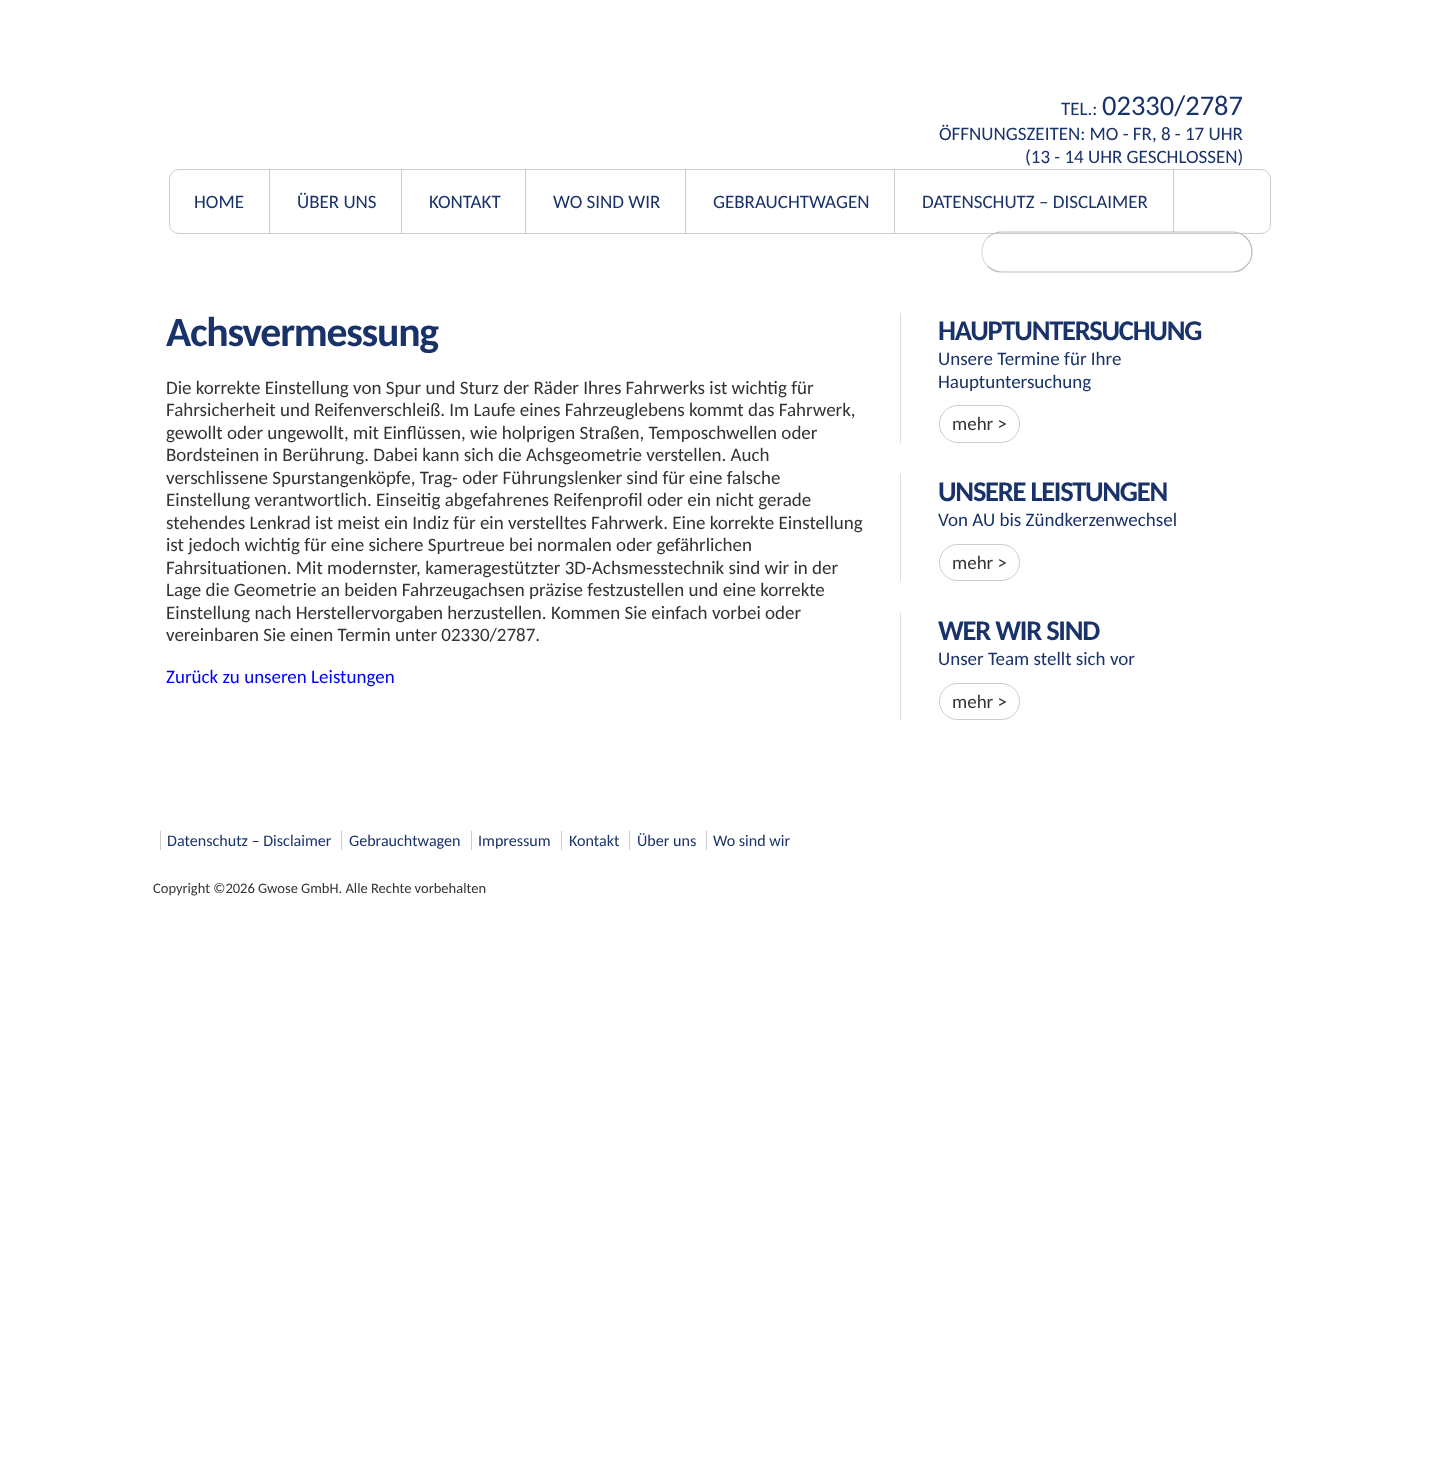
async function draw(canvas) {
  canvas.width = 1440
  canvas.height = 1474
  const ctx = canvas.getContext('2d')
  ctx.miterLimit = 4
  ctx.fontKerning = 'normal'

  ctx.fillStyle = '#fff'
  ctx.fillRect(0, 0, 1440, 1474)
  ctx.letterSpacing = '-1.25px'
  ctx.font = 'bold 41.75px Carlito'
  ctx.fillStyle = '#193269'
  ctx.fillText('Achsvermessung', 166, 346)
  ctx.letterSpacing = '0px'
  ctx.font = '19px Carlito'
  ctx.fillStyle = '#333'
  ctx.fillText('Die korrekte Einstellung von Spur und Sturz der Räder Ihres Fahrwerks ist wichtig für', 166, 394)
  ctx.fillText('Fahrsicherheit und Reifenverschleiß. Im Laufe eines Fahrzeuglebens kommt das Fahrwerk,', 166, 416)
  ctx.fillText('gewollt oder ungewollt, mit Einflüssen, wie holprigen Straßen, Temposchwellen oder', 166, 439)
  ctx.fillText('Bordsteinen in Berührung. Dabei kann sich die Achsgeometrie verstellen. Auch', 166, 461)
  ctx.fillText('verschlissene Spurstangenköpfe, Trag- oder Führungslenker sind für eine falsche', 166, 484)
  ctx.fillText('Einstellung verantwortlich. Einseitig abgefahrenes Reifenprofil oder ein nicht gerade', 166, 506)
  ctx.fillText('stehendes Lenkrad ist meist ein Indiz für ein verstelltes Fahrwerk. Eine korrekte Einstellung', 166, 529)
  ctx.fillText('ist jedoch wichtig für eine sichere Spurtreue bei normalen oder gefährlichen', 166, 551)
  ctx.fillText('Fahrsituationen. Mit modernster, kameragestützter 3D-Achsmesstechnik sind wir in der', 166, 574)
  ctx.fillText('Lage die Geometrie an beiden Fahrzeugachsen präzise festzustellen und eine korrekte', 166, 596)
  ctx.fillText('Einstellung nach Herstellervorgaben herzustellen. Kommen Sie einfach vorbei oder', 166, 619)
  ctx.fillText('vereinbaren Sie einen Termin unter 02330/2787.', 166, 641)
  ctx.fillStyle = '#00f'
  ctx.fillText('Zurück zu unseren Leistungen', 166, 683)
  ctx.fillStyle = '#193269'
  ctx.fillText('TEL.:', 1061, 115)
  ctx.font = '28.5px Carlito'
  ctx.fillText('02330/2787', 1102, 115)
  ctx.font = '19px Carlito'
  ctx.fillText('ÖFFNUNGSZEITEN: MO - FR, 8 - 17 UHR', 939, 140)
  ctx.fillText('(13 - 14 UHR GESCHLOSSEN)', 1025, 163)
  ctx.beginPath()
  ctx.roundRect(169.5, 169.5, 1101, 64, 9.5)
  ctx.strokeStyle = '#ccc'
  ctx.stroke()
  ctx.fillStyle = '#ccc'
  ctx.fillRect(1173, 170, 1, 63)
  ctx.beginPath()
  ctx.moveTo(987.5, 237.5)
  ctx.bezierCurveTo(991.5, 234, 996.5, 232, 1002, 232)
  ctx.lineTo(1232, 232)
  ctx.bezierCurveTo(1237, 232, 1242.5, 234, 1246, 237.5)
  ctx.bezierCurveTo(1250, 241.5, 1252, 246.5, 1252, 252)
  ctx.bezierCurveTo(1252, 257, 1250, 262.5, 1246, 266)
  ctx.bezierCurveTo(1242.5, 270, 1237, 272, 1232, 272)
  ctx.lineTo(1002, 272)
  ctx.bezierCurveTo(996.5, 272, 991.5, 270, 987.5, 266)
  ctx.strokeStyle = '#bbb'
  ctx.lineWidth = 1.2
  ctx.stroke()
  ctx.beginPath()
  ctx.moveTo(987.5, 266)
  ctx.bezierCurveTo(980, 258.5, 980, 245.5, 987.5, 237.5)
  ctx.strokeStyle = '#ddd'
  ctx.stroke()
  ctx.fillStyle = '#ddd'
  ctx.fillRect(900, 313, 1, 130)
  ctx.letterSpacing = '-1.25px'
  ctx.font = 'bold 28.5px Carlito'
  ctx.fillStyle = '#193269'
  ctx.fillText('HAUPTUNTERSUCHUNG', 938, 340)
  ctx.letterSpacing = '0px'
  ctx.font = '19px Carlito'
  ctx.fillText('Unsere Termine für Ihre', 938, 365)
  ctx.fillText('Hauptuntersuchung', 938, 388)
  ctx.beginPath()
  ctx.roundRect(939.5, 405.5, 80, 37, 18.5)
  ctx.strokeStyle = '#ccc'
  ctx.lineWidth = 1
  ctx.stroke()
  ctx.fillStyle = '#333'
  ctx.fillText('mehr >', 952, 430)
  ctx.fillStyle = '#ddd'
  ctx.fillRect(900, 474, 1, 107)
  ctx.letterSpacing = '-1.25px'
  ctx.font = 'bold 28.5px Carlito'
  ctx.fillStyle = '#193269'
  ctx.fillText('UNSERE LEISTUNGEN', 938, 501)
  ctx.letterSpacing = '0px'
  ctx.font = '19px Carlito'
  ctx.fillText('Von AU bis Zündkerzenwechsel', 938, 526)
  ctx.beginPath()
  ctx.roundRect(939.5, 544.5, 80, 36, 18)
  ctx.stroke()
  ctx.fillStyle = '#333'
  ctx.fillText('mehr >', 952, 569)
  ctx.fillStyle = '#ddd'
  ctx.fillRect(900, 613, 1, 107)
  ctx.letterSpacing = '-1.25px'
  ctx.font = 'bold 28.5px Carlito'
  ctx.fillStyle = '#193269'
  ctx.fillText('WER WIR SIND', 938, 640)
  ctx.letterSpacing = '0px'
  ctx.font = '19px Carlito'
  ctx.fillText('Unser Team stellt sich vor', 938, 665)
  ctx.beginPath()
  ctx.roundRect(939.5, 683.5, 80, 36, 18)
  ctx.stroke()
  ctx.fillStyle = '#333'
  ctx.fillText('mehr >', 952, 708)
  ctx.fillStyle = '#ccc'
  ctx.fillRect(269, 170, 1, 63)
  ctx.fillStyle = '#193269'
  ctx.fillText('HOME', 194, 208)
  ctx.fillStyle = '#ccc'
  ctx.fillRect(401, 170, 1, 63)
  ctx.fillStyle = '#193269'
  ctx.fillText('ÜBER UNS', 297, 208)
  ctx.fillStyle = '#ccc'
  ctx.fillRect(525, 170, 1, 63)
  ctx.fillStyle = '#193269'
  ctx.fillText('KONTAKT', 429, 208)
  ctx.fillStyle = '#ccc'
  ctx.fillRect(685, 170, 1, 63)
  ctx.fillStyle = '#193269'
  ctx.fillText('WO SIND WIR', 553, 208)
  ctx.fillStyle = '#ccc'
  ctx.fillRect(894, 170, 1, 63)
  ctx.fillStyle = '#193269'
  ctx.fillText('GEBRAUCHTWAGEN', 713, 208)
  ctx.fillText('DATENSCHUTZ – DISCLAIMER', 922, 208)
  ctx.fillStyle = '#ccc'
  ctx.fillRect(160, 831, 1, 19)
  ctx.font = '16.1px Carlito'
  ctx.fillStyle = '#193269'
  ctx.fillText('Datenschutz – Disclaimer', 167, 846)
  ctx.fillStyle = '#ccc'
  ctx.fillRect(341, 831, 1, 19)
  ctx.fillStyle = '#193269'
  ctx.fillText('Gebrauchtwagen', 349, 846)
  ctx.fillStyle = '#ccc'
  ctx.fillRect(471, 831, 1, 19)
  ctx.fillStyle = '#193269'
  ctx.fillText('Impressum', 478, 846)
  ctx.fillStyle = '#ccc'
  ctx.fillRect(561, 831, 1, 19)
  ctx.fillStyle = '#193269'
  ctx.fillText('Kontakt', 569, 846)
  ctx.fillStyle = '#ccc'
  ctx.fillRect(629, 831, 1, 19)
  ctx.fillStyle = '#193269'
  ctx.fillText('Über uns', 637, 846)
  ctx.fillStyle = '#ccc'
  ctx.fillRect(706, 831, 1, 19)
  ctx.fillStyle = '#193269'
  ctx.fillText('Wo sind wir', 713, 846)
  ctx.font = '14.5px Carlito'
  ctx.fillStyle = '#333'
  ctx.fillText('Copyright ©2026 Gwose GmbH. Alle Rechte vorbehalten', 153, 893)
}

draw(document.querySelector('canvas'))
